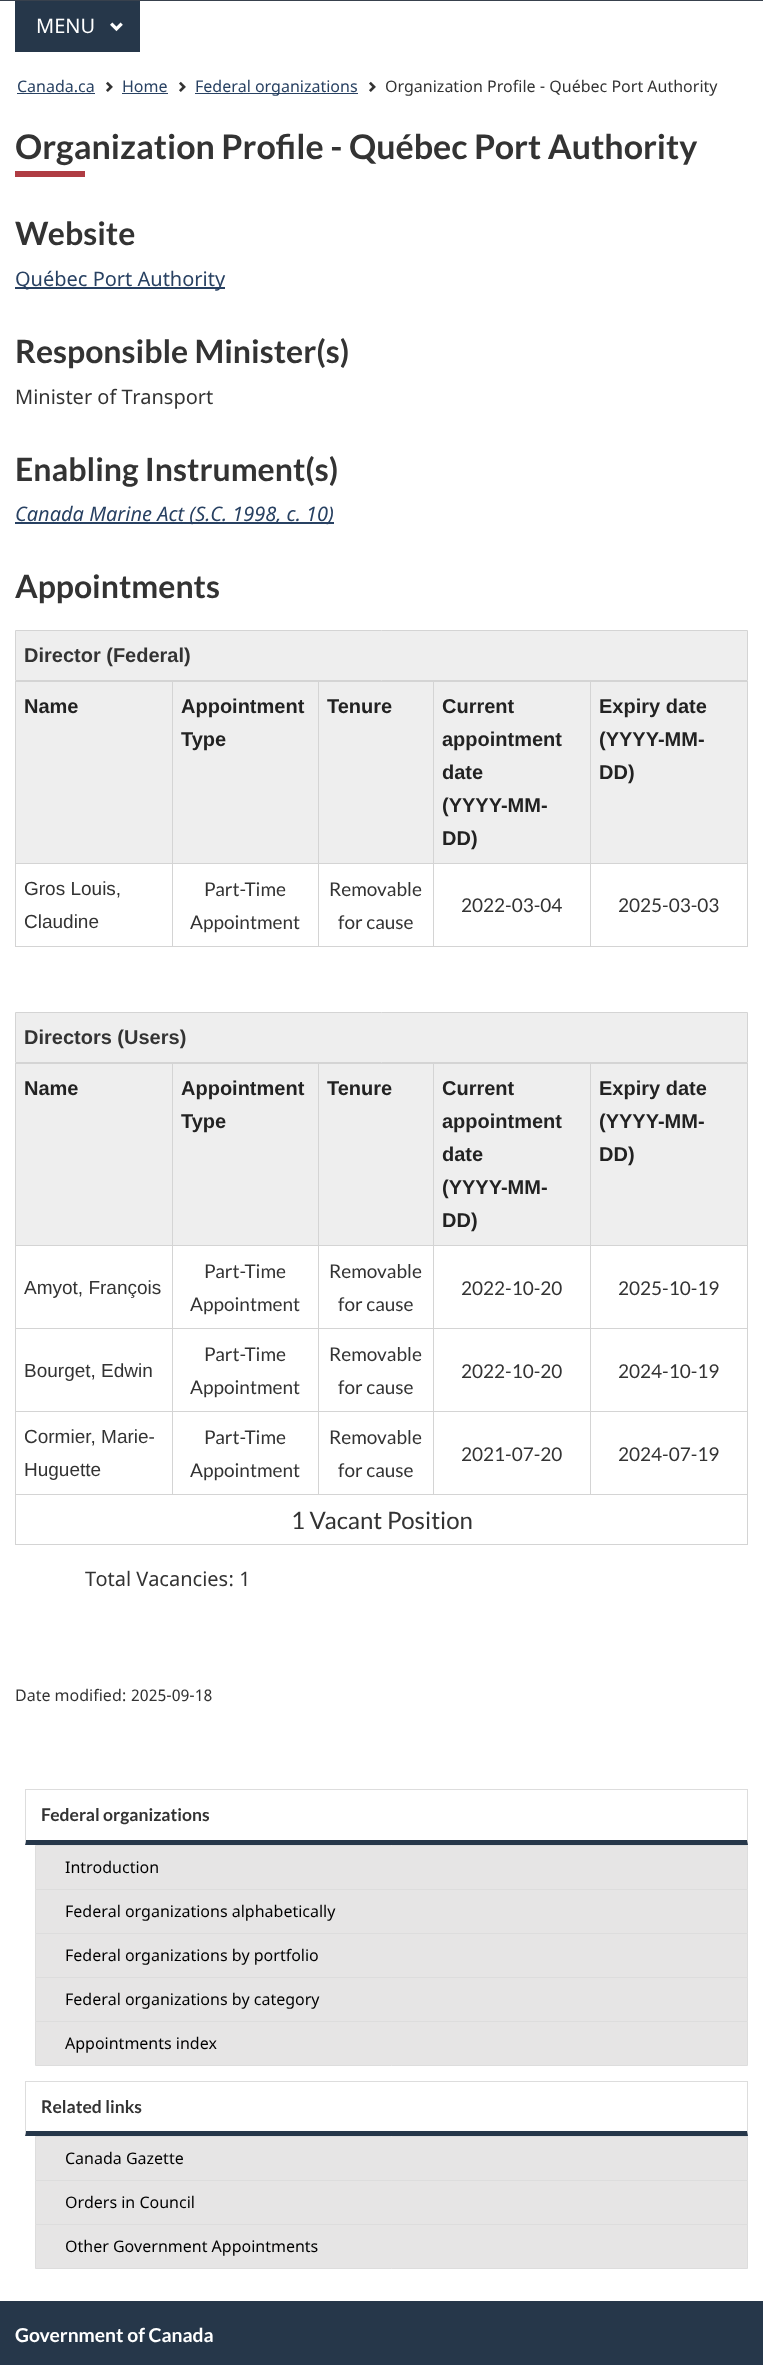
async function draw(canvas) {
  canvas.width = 763
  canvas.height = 2365
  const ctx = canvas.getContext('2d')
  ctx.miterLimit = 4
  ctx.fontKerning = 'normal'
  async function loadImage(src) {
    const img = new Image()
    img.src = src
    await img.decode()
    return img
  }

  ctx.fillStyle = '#fff'
  ctx.fillRect(0, 0, 763, 2365)
  ctx.fillStyle = '#38414d'
  ctx.fillRect(0, 0, 763, 1)
  ctx.fillStyle = '#26374a'
  ctx.fillRect(15, 1, 125, 51)
  ctx.font = '20px Noto Sans'
  ctx.fillStyle = '#fff'
  ctx.fillText('MENU', 36, 33)
  ctx.drawImage(await loadImage('image0.png'), 110, 22, 13, 10)
  ctx.font = '16px Noto Sans'
  ctx.fillStyle = '#284162'
  ctx.fillText('Canada.ca', 17, 92)
  ctx.fillRect(17, 93, 78, 1)
  ctx.drawImage(await loadImage('image1.png'), 106, 81, 7, 11)
  ctx.fillText('Home', 122, 92)
  ctx.fillRect(122, 93, 46, 1)
  ctx.drawImage(await loadImage('image1.png'), 179, 81, 7, 11)
  ctx.fillRect(195, 93, 163, 1)
  ctx.fillText('Federal organizations', 195, 92)
  ctx.drawImage(await loadImage('image1.png'), 369, 81, 7, 11)
  ctx.fillStyle = '#333'
  ctx.fillText('Organization Profile - Québec Port Authority', 385, 92)
  ctx.fillStyle = '#af3c43'
  ctx.fillRect(15, 171, 70, 6)
  ctx.font = 'bold 34px Lato'
  ctx.fillStyle = '#333'
  ctx.fillText('Organization Profile - Québec Port Authority', 15, 159)
  ctx.font = 'bold 32px Lato'
  ctx.fillText('Website', 15, 245)
  ctx.fillStyle = '#284162'
  ctx.fillRect(15, 287, 210, 2)
  ctx.font = '20px Noto Sans'
  ctx.fillText('Québec Port Authority', 15, 286)
  ctx.font = 'bold 32px Lato'
  ctx.fillStyle = '#333'
  ctx.fillText('Responsible Minister(s)', 15, 363)
  ctx.font = '20px Noto Sans'
  ctx.fillText('Minister of Transport', 15, 404)
  ctx.font = 'bold 32px Lato'
  ctx.fillText('Enabling Instrument(s)', 15, 481)
  ctx.fillStyle = '#284162'
  ctx.fillRect(15, 522, 319, 2)
  ctx.font = 'italic 20px Noto Sans'
  ctx.fillText('Canada Marine Act (S.C. 1998, c. 10)', 15, 521)
  ctx.font = 'bold 32px Lato'
  ctx.fillStyle = '#333'
  ctx.fillText('Appointments', 15, 598)
  ctx.fillStyle = '#eee'
  ctx.beginPath()
  ctx.rect(15.5, 630.5, 732, 50)
  ctx.fill()
  ctx.strokeStyle = '#d4d4d4'
  ctx.stroke()
  ctx.font = 'bold 20px Liberation Sans'
  ctx.fillStyle = '#333'
  ctx.fillText('Director (Federal)', 24, 662)
  ctx.fillStyle = '#eee'
  ctx.fillRect(16, 682, 156, 181)
  ctx.fillStyle = '#d4d4d4'
  ctx.fillRect(590, 681, 158, 1)
  ctx.fillRect(590, 863, 158, 1)
  ctx.fillRect(747, 863, 1, 84)
  ctx.fillRect(590, 946, 158, 1)
  ctx.fillRect(590, 863, 1, 84)
  ctx.fillRect(433, 863, 158, 1)
  ctx.fillRect(590, 681, 1, 183)
  ctx.fillRect(433, 681, 158, 1)
  ctx.fillRect(433, 946, 158, 1)
  ctx.fillRect(433, 863, 1, 84)
  ctx.fillRect(318, 863, 116, 1)
  ctx.fillRect(433, 681, 1, 183)
  ctx.fillRect(318, 681, 116, 1)
  ctx.fillRect(318, 946, 116, 1)
  ctx.fillRect(318, 863, 1, 84)
  ctx.fillRect(172, 863, 147, 1)
  ctx.fillRect(318, 681, 1, 183)
  ctx.fillRect(172, 681, 147, 1)
  ctx.fillRect(172, 946, 147, 1)
  ctx.fillRect(172, 863, 1, 84)
  ctx.fillRect(15, 863, 158, 1)
  ctx.fillRect(172, 681, 1, 183)
  ctx.fillRect(15, 681, 158, 1)
  ctx.fillRect(15, 946, 158, 1)
  ctx.fillRect(15, 863, 1, 84)
  ctx.fillRect(15, 681, 1, 183)
  ctx.fillStyle = '#222'
  ctx.fillText('Name', 24, 713)
  ctx.fillStyle = '#eee'
  ctx.fillRect(173, 682, 145, 181)
  ctx.fillStyle = '#222'
  ctx.fillText('Appointment', 181, 713)
  ctx.fillText('Type', 181, 746)
  ctx.fillStyle = '#eee'
  ctx.fillRect(319, 682, 114, 181)
  ctx.fillStyle = '#222'
  ctx.fillText('Tenure', 327, 713)
  ctx.fillStyle = '#eee'
  ctx.fillRect(434, 682, 156, 181)
  ctx.fillStyle = '#222'
  ctx.fillText('Current', 442, 713)
  ctx.fillText('appointment', 442, 746)
  ctx.fillText('date', 442, 779)
  ctx.fillText('(YYYY-MM-', 442, 812)
  ctx.fillText('DD)', 442, 845)
  ctx.fillStyle = '#eee'
  ctx.fillRect(591, 682, 156, 181)
  ctx.fillStyle = '#d4d4d4'
  ctx.fillRect(747, 681, 1, 183)
  ctx.fillStyle = '#222'
  ctx.fillText('Expiry date', 599, 713)
  ctx.fillText('(YYYY-MM-', 599, 746)
  ctx.fillText('DD)', 599, 779)
  ctx.font = '19px Liberation Sans'
  ctx.fillStyle = '#333'
  ctx.fillText('Gros Louis,', 24, 895)
  ctx.fillText('Claudine', 24, 928)
  ctx.font = '19px Lato'
  ctx.fillText('Part-Time', 204, 896)
  ctx.fillText('Appointment', 190, 929)
  ctx.fillText('Removable', 329, 896)
  ctx.fillText('for cause', 338, 929)
  ctx.fillText('2022-03-04', 461, 912)
  ctx.fillText('2025-03-03', 618, 912)
  ctx.fillStyle = '#eee'
  ctx.beginPath()
  ctx.rect(15.5, 1012.5, 732, 50)
  ctx.fill()
  ctx.stroke()
  ctx.font = 'bold 20px Liberation Sans'
  ctx.fillStyle = '#333'
  ctx.fillText('Directors (Users)', 24, 1044)
  ctx.fillStyle = '#eee'
  ctx.fillRect(16, 1064, 156, 181)
  ctx.fillStyle = '#d4d4d4'
  ctx.fillRect(590, 1063, 158, 1)
  ctx.fillRect(590, 1245, 158, 1)
  ctx.fillRect(590, 1328, 158, 1)
  ctx.fillRect(590, 1411, 158, 1)
  ctx.fillRect(15, 1494, 733, 1)
  ctx.fillRect(590, 1411, 1, 84)
  ctx.fillRect(433, 1411, 158, 1)
  ctx.fillRect(590, 1328, 1, 84)
  ctx.fillRect(433, 1328, 158, 1)
  ctx.fillRect(590, 1245, 1, 84)
  ctx.fillRect(433, 1245, 158, 1)
  ctx.fillRect(590, 1063, 1, 183)
  ctx.fillRect(433, 1063, 158, 1)
  ctx.fillRect(433, 1411, 1, 84)
  ctx.fillRect(318, 1411, 116, 1)
  ctx.fillRect(433, 1328, 1, 84)
  ctx.fillRect(318, 1328, 116, 1)
  ctx.fillRect(433, 1245, 1, 84)
  ctx.fillRect(318, 1245, 116, 1)
  ctx.fillRect(433, 1063, 1, 183)
  ctx.fillRect(318, 1063, 116, 1)
  ctx.fillRect(318, 1411, 1, 84)
  ctx.fillRect(172, 1411, 147, 1)
  ctx.fillRect(318, 1328, 1, 84)
  ctx.fillRect(172, 1328, 147, 1)
  ctx.fillRect(318, 1245, 1, 84)
  ctx.fillRect(172, 1245, 147, 1)
  ctx.fillRect(318, 1063, 1, 183)
  ctx.fillRect(172, 1063, 147, 1)
  ctx.fillRect(172, 1411, 1, 84)
  ctx.fillRect(15, 1411, 158, 1)
  ctx.fillRect(172, 1328, 1, 84)
  ctx.fillRect(15, 1328, 158, 1)
  ctx.fillRect(172, 1245, 1, 84)
  ctx.fillRect(15, 1245, 158, 1)
  ctx.fillRect(172, 1063, 1, 183)
  ctx.fillRect(15, 1063, 158, 1)
  ctx.fillRect(747, 1494, 1, 51)
  ctx.fillRect(15, 1544, 733, 1)
  ctx.fillRect(15, 1494, 1, 51)
  ctx.fillRect(15, 1411, 1, 84)
  ctx.fillRect(15, 1328, 1, 84)
  ctx.fillRect(15, 1245, 1, 84)
  ctx.fillRect(15, 1063, 1, 183)
  ctx.fillStyle = '#222'
  ctx.fillText('Name', 24, 1095)
  ctx.fillStyle = '#eee'
  ctx.fillRect(173, 1064, 145, 181)
  ctx.fillStyle = '#222'
  ctx.fillText('Appointment', 181, 1095)
  ctx.fillText('Type', 181, 1128)
  ctx.fillStyle = '#eee'
  ctx.fillRect(319, 1064, 114, 181)
  ctx.fillStyle = '#222'
  ctx.fillText('Tenure', 327, 1095)
  ctx.fillStyle = '#eee'
  ctx.fillRect(434, 1064, 156, 181)
  ctx.fillStyle = '#222'
  ctx.fillText('Current', 442, 1095)
  ctx.fillText('appointment', 442, 1128)
  ctx.fillText('date', 442, 1161)
  ctx.fillText('(YYYY-MM-', 442, 1194)
  ctx.fillText('DD)', 442, 1227)
  ctx.fillStyle = '#eee'
  ctx.fillRect(591, 1064, 156, 181)
  ctx.fillStyle = '#d4d4d4'
  ctx.fillRect(747, 1411, 1, 84)
  ctx.fillRect(747, 1328, 1, 84)
  ctx.fillRect(747, 1245, 1, 84)
  ctx.fillRect(747, 1063, 1, 183)
  ctx.fillStyle = '#222'
  ctx.fillText('Expiry date', 599, 1095)
  ctx.fillText('(YYYY-MM-', 599, 1128)
  ctx.fillText('DD)', 599, 1161)
  ctx.font = '19px Liberation Sans'
  ctx.fillStyle = '#333'
  ctx.fillText('Amyot, François', 24, 1294)
  ctx.font = '19px Lato'
  ctx.fillText('Part-Time', 204, 1278)
  ctx.fillText('Appointment', 190, 1311)
  ctx.fillText('Removable', 329, 1278)
  ctx.fillText('for cause', 338, 1311)
  ctx.fillText('2022-10-20', 461, 1295)
  ctx.fillText('2025-10-19', 618, 1295)
  ctx.font = '19px Liberation Sans'
  ctx.fillText('Bourget, Edwin', 24, 1377)
  ctx.font = '19px Lato'
  ctx.fillText('Part-Time', 204, 1361)
  ctx.fillText('Appointment', 190, 1394)
  ctx.fillText('Removable', 329, 1361)
  ctx.fillText('for cause', 338, 1394)
  ctx.fillText('2022-10-20', 461, 1378)
  ctx.fillText('2024-10-19', 618, 1378)
  ctx.font = '19px Liberation Sans'
  ctx.fillText('Cormier, Marie-', 24, 1443)
  ctx.fillText('Huguette', 24, 1476)
  ctx.font = '19px Lato'
  ctx.fillText('Part-Time', 204, 1444)
  ctx.fillText('Appointment', 190, 1477)
  ctx.fillText('Removable', 329, 1444)
  ctx.fillText('for cause', 338, 1477)
  ctx.fillText('2021-07-20', 461, 1461)
  ctx.fillText('2024-07-19', 618, 1461)
  ctx.font = '24px Lato'
  ctx.fillText('1 Vacant Position', 291, 1529)
  ctx.font = '20px Noto Sans'
  ctx.fillText('Total Vacancies: 1', 85, 1586)
  ctx.font = '16px Noto Sans'
  ctx.fillText('Date modified:', 15, 1701)
  ctx.fillText('2025-09-18', 131, 1701)
  ctx.fillStyle = '#ddd'
  ctx.fillRect(25, 1789, 723, 1)
  ctx.beginPath()
  ctx.moveTo(748, 1789)
  ctx.lineTo(748, 1845)
  ctx.lineTo(747, 1840)
  ctx.lineTo(747, 1790)
  ctx.closePath()
  ctx.fill()
  ctx.fillStyle = '#26374a'
  ctx.beginPath()
  ctx.moveTo(748, 1845)
  ctx.lineTo(25, 1845)
  ctx.lineTo(26, 1840)
  ctx.lineTo(747, 1840)
  ctx.closePath()
  ctx.fill()
  ctx.fillStyle = '#ddd'
  ctx.beginPath()
  ctx.moveTo(25, 1845)
  ctx.lineTo(25, 1789)
  ctx.lineTo(26, 1790)
  ctx.lineTo(26, 1840)
  ctx.closePath()
  ctx.fill()
  ctx.font = 'bold 17.5px Lato'
  ctx.fillStyle = '#333'
  ctx.fillText('Federal organizations', 41, 1821)
  ctx.fillStyle = '#e6e5e5'
  ctx.beginPath()
  ctx.rect(35.5, 1845.5, 712, 44)
  ctx.fill()
  ctx.strokeStyle = '#ddd'
  ctx.stroke()
  ctx.font = '16px Noto Sans'
  ctx.fillStyle = '#000'
  ctx.fillText('Introduction', 65, 1873)
  ctx.fillStyle = '#e6e5e5'
  ctx.beginPath()
  ctx.rect(35.5, 1889.5, 712, 44)
  ctx.fill()
  ctx.stroke()
  ctx.fillStyle = '#000'
  ctx.fillText('Federal organizations alphabetically', 65, 1917)
  ctx.fillStyle = '#e6e5e5'
  ctx.beginPath()
  ctx.rect(35.5, 1933.5, 712, 44)
  ctx.fill()
  ctx.stroke()
  ctx.fillStyle = '#000'
  ctx.fillText('Federal organizations by portfolio', 65, 1961)
  ctx.fillStyle = '#e6e5e5'
  ctx.beginPath()
  ctx.rect(35.5, 1977.5, 712, 44)
  ctx.fill()
  ctx.stroke()
  ctx.fillStyle = '#000'
  ctx.fillText('Federal organizations by category', 65, 2005)
  ctx.fillStyle = '#e6e5e5'
  ctx.beginPath()
  ctx.rect(35.5, 2021.5, 712, 44)
  ctx.fill()
  ctx.stroke()
  ctx.fillStyle = '#000'
  ctx.fillText('Appointments index', 65, 2049)
  ctx.fillStyle = '#ddd'
  ctx.fillRect(25, 2081, 723, 1)
  ctx.beginPath()
  ctx.moveTo(748, 2081)
  ctx.lineTo(748, 2136)
  ctx.lineTo(747, 2131)
  ctx.lineTo(747, 2082)
  ctx.closePath()
  ctx.fill()
  ctx.fillStyle = '#26374a'
  ctx.beginPath()
  ctx.moveTo(748, 2136)
  ctx.lineTo(25, 2136)
  ctx.lineTo(26, 2131)
  ctx.lineTo(747, 2131)
  ctx.closePath()
  ctx.fill()
  ctx.fillStyle = '#ddd'
  ctx.beginPath()
  ctx.moveTo(25, 2136)
  ctx.lineTo(25, 2081)
  ctx.lineTo(26, 2082)
  ctx.lineTo(26, 2131)
  ctx.closePath()
  ctx.fill()
  ctx.font = 'bold 17.5px Lato'
  ctx.fillStyle = '#333'
  ctx.fillText('Related links', 41, 2113)
  ctx.fillStyle = '#e6e5e5'
  ctx.beginPath()
  ctx.rect(35.5, 2136.5, 712, 44)
  ctx.fill()
  ctx.stroke()
  ctx.font = '16px Noto Sans'
  ctx.fillStyle = '#000'
  ctx.fillText('Canada Gazette', 65, 2164)
  ctx.fillStyle = '#e6e5e5'
  ctx.beginPath()
  ctx.rect(35.5, 2180.5, 712, 44)
  ctx.fill()
  ctx.stroke()
  ctx.fillStyle = '#000'
  ctx.fillText('Orders in Council', 65, 2208)
  ctx.fillStyle = '#e6e5e5'
  ctx.beginPath()
  ctx.rect(35.5, 2224.5, 712, 44)
  ctx.fill()
  ctx.stroke()
  ctx.fillStyle = '#000'
  ctx.fillText('Other Government Appointments', 65, 2252)
  ctx.fillStyle = '#26374a'
  ctx.fillRect(0, 2301, 763, 64)
  ctx.font = 'bold 19.25px Lato'
  ctx.fillStyle = '#fff'
  ctx.fillText('Government of Canada', 15, 2342)
}

draw(document.querySelector('canvas'))
